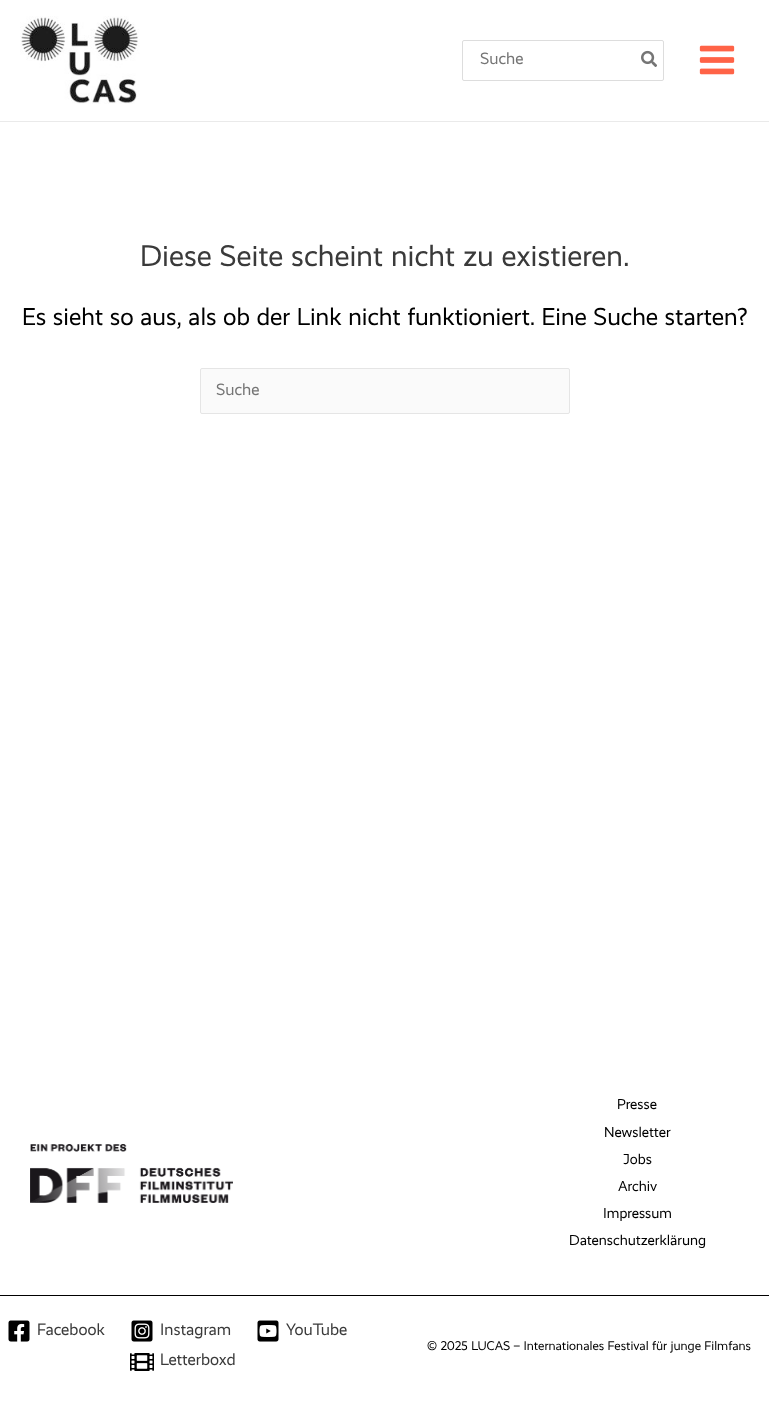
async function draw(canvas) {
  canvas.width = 769
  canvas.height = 1407
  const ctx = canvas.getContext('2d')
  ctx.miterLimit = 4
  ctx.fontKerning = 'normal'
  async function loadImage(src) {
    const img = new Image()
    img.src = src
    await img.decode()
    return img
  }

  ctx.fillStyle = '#fff'
  ctx.fillRect(0, 0, 769, 1407)
  ctx.fillStyle = '#eaeaea'
  ctx.fillRect(0, 121, 769, 1)
  ctx.drawImage(await loadImage('image0.png'), 20, 16, 120, 88)
  ctx.beginPath()
  ctx.roundRect(462.5, 40.5, 201, 40, 1.5)
  ctx.strokeStyle = '#ddd'
  ctx.stroke()
  ctx.font = '16.5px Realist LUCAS'
  ctx.fillStyle = '#757575'
  ctx.fillText('Suche', 480, 64)
  ctx.drawImage(await loadImage('image1.png'), 641, 50, 16, 17)
  ctx.drawImage(await loadImage('image2.png'), 699, 45, 36, 30)
  ctx.font = '30px Realist LUCAS'
  ctx.fillStyle = '#3a3a3a'
  ctx.fillText('Diese Seite scheint nicht zu existieren.', 140, 266)
  ctx.font = '24.6px Realist LUCAS'
  ctx.fillStyle = '#000'
  ctx.fillText('Es sieht so aus, als ob der Link nicht funktioniert. Eine Suche starten?', 22, 325)
  ctx.fillStyle = '#fafafa'
  ctx.beginPath()
  ctx.roundRect(200.5, 368.5, 369, 45, 1.5)
  ctx.fill()
  ctx.strokeStyle = '#e5e5e5'
  ctx.stroke()
  ctx.font = '16.5px Realist LUCAS'
  ctx.fillStyle = '#757575'
  ctx.fillText('Suche', 216, 395)
  ctx.drawImage(await loadImage('image3.png'), 30, 1144, 203, 59)
  ctx.font = '14.5px Realist LUCAS'
  ctx.fillStyle = '#000'
  ctx.fillText('Presse', 617, 1109)
  ctx.fillText('Newsletter', 604, 1137)
  ctx.fillText('Jobs', 623, 1164)
  ctx.fillText('Archiv', 618, 1191)
  ctx.fillText('Impressum', 603, 1218)
  ctx.fillText('Datenschutzerklärung', 569, 1245)
  ctx.fillRect(0, 1295, 769, 1)
  ctx.drawImage(await loadImage('image4.png'), 8, 1320, 22, 22)
  ctx.font = '16.5px Realist LUCAS'
  ctx.fillStyle = '#3a3a3a'
  ctx.fillText('Facebook', 37, 1335)
  ctx.drawImage(await loadImage('image5.png'), 131, 1320, 22, 22)
  ctx.fillText('Instagram', 160, 1335)
  ctx.drawImage(await loadImage('image6.png'), 257, 1320, 22, 22)
  ctx.fillText('YouTube', 286, 1335)
  ctx.drawImage(await loadImage('image7.png'), 130, 1353, 24, 18)
  ctx.fillText('Letterboxd', 160, 1365)
  ctx.font = '12.75px Realist LUCAS'
  ctx.fillStyle = '#000'
  ctx.fillText('© 2025 LUCAS – Internationales Festival für junge Filmfans', 427, 1350)
}

draw(document.querySelector('canvas'))
